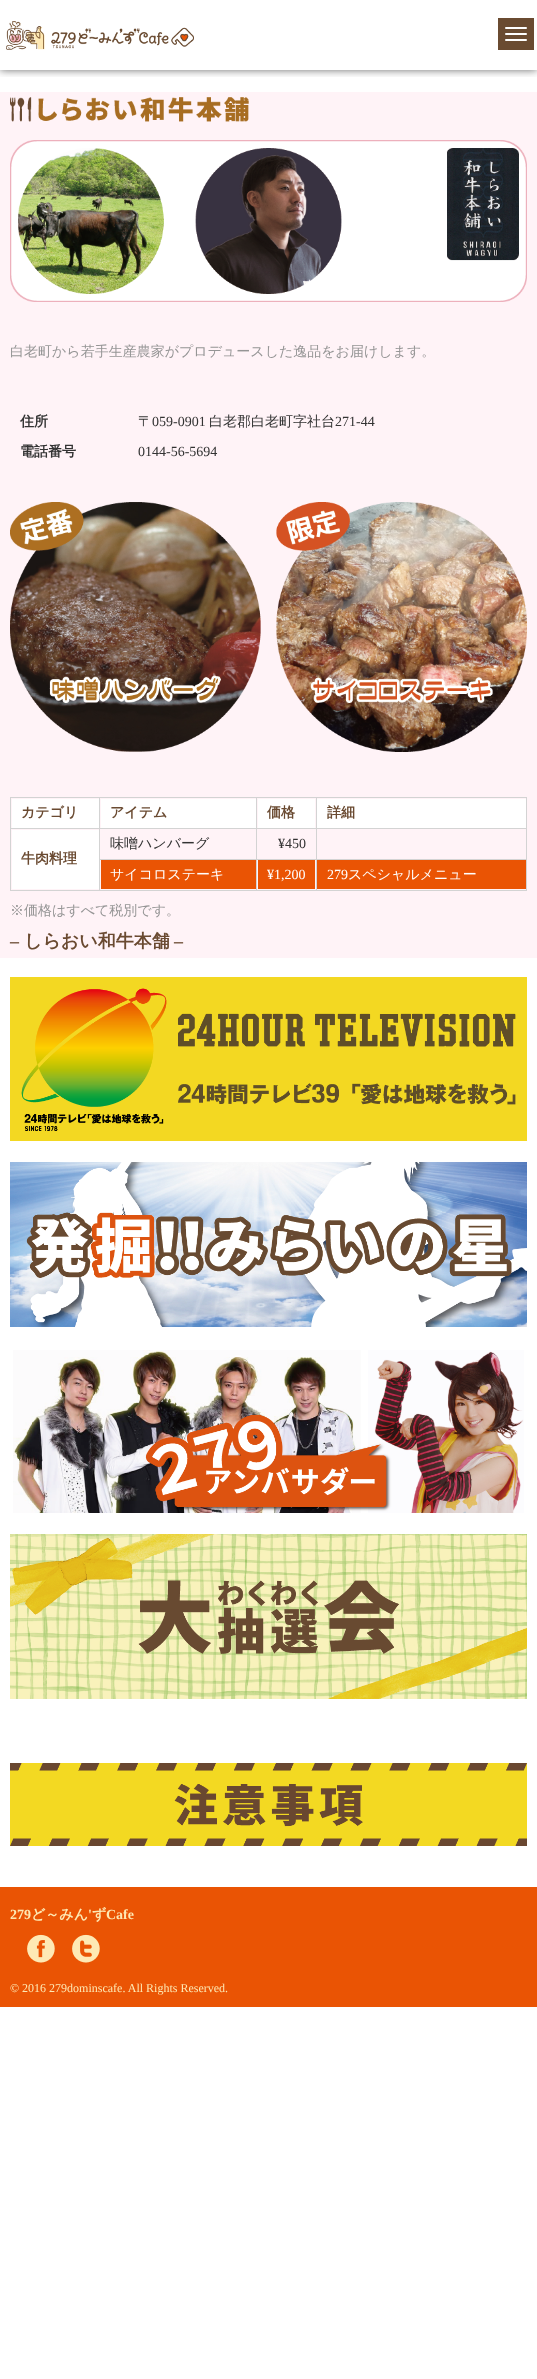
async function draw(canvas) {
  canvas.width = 537
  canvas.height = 2379
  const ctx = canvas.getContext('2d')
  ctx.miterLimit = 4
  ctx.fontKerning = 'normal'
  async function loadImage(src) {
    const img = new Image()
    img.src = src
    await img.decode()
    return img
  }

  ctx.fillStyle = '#fff'
  ctx.fillRect(0, 0, 537, 2379)
  ctx.save()
  ctx.beginPath()
  ctx.rect(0, 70, 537, 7)
  ctx.clip()
  ctx.fillStyle = '#00000096'
  ctx.filter = 'blur(4px)'
  ctx.beginPath()
  ctx.rect(0, 0, 537, 70)
  ctx.fill()
  ctx.filter = 'none'
  ctx.restore()
  ctx.drawImage(await loadImage('image0.png'), 6, 21, 188, 29)
  ctx.fillStyle = '#6a4b31'
  ctx.fillRect(498, 18, 36, 32)
  ctx.fillStyle = '#fff'
  ctx.beginPath()
  ctx.roundRect(505, 27, 22, 2, 1)
  ctx.fill()
  ctx.beginPath()
  ctx.roundRect(505, 33, 22, 2, 1)
  ctx.fill()
  ctx.beginPath()
  ctx.roundRect(505, 39, 22, 2, 1)
  ctx.fill()
  ctx.fillStyle = '#fff3f7'
  ctx.fillRect(0, 92, 537, 866)
  ctx.drawImage(await loadImage('image1.png'), 10, 97, 239, 25)
  ctx.drawImage(await loadImage('image2.png'), 10, 140, 517, 162)
  ctx.font = '500 14px WenQuanYi Zen Hei'
  ctx.fillStyle = '#959595'
  ctx.fillText('白老町から若手生産農家がプロデュースした逸品をお届けします。', 10, 356)
  ctx.font = 'bold 14px WenQuanYi Zen Hei'
  ctx.fillStyle = '#333'
  ctx.fillText('住所', 20, 426)
  ctx.font = '500 14px WenQuanYi Zen Hei'
  ctx.fillText('〒', 138, 426)
  ctx.font = '14px Liberation Serif'
  ctx.fillText('059-0901', 152, 426)
  ctx.font = '500 14px WenQuanYi Zen Hei'
  ctx.fillText('白老郡白老町字社台', 209, 426)
  ctx.font = '14px Liberation Serif'
  ctx.fillText('271-44', 335, 426)
  ctx.font = 'bold 14px WenQuanYi Zen Hei'
  ctx.fillText('電話番号', 20, 456)
  ctx.font = '14px Liberation Serif'
  ctx.fillText('0144-56-5694', 138, 456)
  ctx.drawImage(await loadImage('image3.png'), 10, 502, 517, 250)
  ctx.fillStyle = '#d3d3d3'
  ctx.fillRect(10, 797, 517, 1)
  ctx.fillRect(526, 797, 1, 94)
  ctx.fillRect(10, 890, 517, 1)
  ctx.fillRect(10, 797, 1, 94)
  ctx.fillStyle = '#fff'
  ctx.fillRect(12, 799, 87, 29)
  ctx.font = 'bold 14px WenQuanYi Zen Hei'
  ctx.fillStyle = '#6a4a31'
  ctx.fillText('カテゴリ', 21, 817)
  ctx.fillStyle = '#fff'
  ctx.fillRect(101, 799, 155, 29)
  ctx.fillStyle = '#d3d3d3'
  ctx.fillRect(316, 828, 211, 1)
  ctx.fillRect(316, 859, 211, 1)
  ctx.fillRect(316, 859, 1, 32)
  ctx.fillRect(256, 859, 61, 1)
  ctx.fillRect(316, 828, 1, 32)
  ctx.fillRect(256, 828, 61, 1)
  ctx.fillRect(256, 859, 1, 32)
  ctx.fillRect(99, 859, 158, 1)
  ctx.fillRect(256, 828, 1, 32)
  ctx.fillRect(99, 828, 158, 1)
  ctx.fillRect(99, 859, 1, 32)
  ctx.fillRect(99, 828, 1, 32)
  ctx.fillRect(10, 828, 90, 1)
  ctx.fillRect(99, 797, 1, 32)
  ctx.fillStyle = '#6a4a31'
  ctx.fillText('アイテム', 110, 817)
  ctx.fillStyle = '#fff'
  ctx.fillRect(258, 799, 57, 29)
  ctx.fillStyle = '#d3d3d3'
  ctx.fillRect(256, 797, 1, 32)
  ctx.fillStyle = '#6a4a31'
  ctx.fillText('価格', 267, 817)
  ctx.fillStyle = '#fff'
  ctx.fillRect(317, 799, 209, 29)
  ctx.fillStyle = '#d3d3d3'
  ctx.fillRect(316, 797, 1, 32)
  ctx.fillStyle = '#6a4a31'
  ctx.fillText('詳細', 327, 817)
  ctx.font = '500 14px WenQuanYi Zen Hei'
  ctx.fillStyle = '#333'
  ctx.fillText('味噌ハンバーグ', 110, 848)
  ctx.font = '14px Liberation Serif'
  ctx.fillText('¥450', 278, 848)
  ctx.fillStyle = '#fff'
  ctx.fillRect(12, 830, 87, 59)
  ctx.font = 'bold 14px WenQuanYi Zen Hei'
  ctx.fillStyle = '#6a4a31'
  ctx.fillText('牛肉料理', 21, 863)
  ctx.fillStyle = '#ea5404'
  ctx.fillRect(101, 860, 155, 29)
  ctx.font = '500 14px WenQuanYi Zen Hei'
  ctx.fillStyle = '#fff'
  ctx.fillText('サイコロステーキ', 110, 879)
  ctx.fillStyle = '#ea5404'
  ctx.fillRect(258, 860, 57, 29)
  ctx.font = '14px Liberation Serif'
  ctx.fillStyle = '#fff'
  ctx.fillText('¥1,200', 267, 879)
  ctx.fillStyle = '#ea5404'
  ctx.fillRect(317, 860, 209, 29)
  ctx.fillStyle = '#fff'
  ctx.fillText('279', 327, 879)
  ctx.font = '500 14px WenQuanYi Zen Hei'
  ctx.fillText('スペシャルメニュー', 348, 879)
  ctx.fillStyle = '#959595'
  ctx.fillText('※価格はすべて税別です。', 10, 915)
  ctx.font = 'bold 18px Liberation Serif'
  ctx.fillStyle = '#6a4a31'
  ctx.fillText('–', 10, 947)
  ctx.font = 'bold 18px WenQuanYi Zen Hei'
  ctx.fillText('しらおい和牛本舗', 24, 947)
  ctx.font = 'bold 18px Liberation Serif'
  ctx.fillText('–', 174, 947)
  ctx.drawImage(await loadImage('image4.png'), 10, 977, 517, 164)
  ctx.drawImage(await loadImage('image5.png'), 10, 1162, 517, 165)
  ctx.drawImage(await loadImage('image6.png'), 13, 1350, 511, 163)
  ctx.drawImage(await loadImage('image7.png'), 10, 1534, 517, 165)
  ctx.drawImage(await loadImage('image8.png'), 10, 1763, 517, 83)
  ctx.fillStyle = '#ea5404'
  ctx.fillRect(0, 1887, 537, 120)
  ctx.font = 'bold 14px Liberation Serif'
  ctx.fillStyle = '#fee9b4'
  ctx.fillText('279', 10, 1919)
  ctx.font = 'bold 14px WenQuanYi Zen Hei'
  ctx.fillText('ど～みん', 31, 1919)
  ctx.font = 'bold 14px Liberation Serif'
  ctx.fillText('\'', 88, 1919)
  ctx.font = 'bold 14px WenQuanYi Zen Hei'
  ctx.fillText('ず', 92, 1919)
  ctx.font = 'bold 14px Liberation Serif'
  ctx.fillText('Cafe', 106, 1919)
  ctx.drawImage(await loadImage('image9.png'), 27, 1934, 28, 29)
  ctx.drawImage(await loadImage('image10.png'), 72, 1934, 28, 29)
  ctx.font = '12px Liberation Serif'
  ctx.fillText('© 2016 279dominscafe. All Rights Reserved.', 10, 1992)
}

draw(document.querySelector('canvas'))
